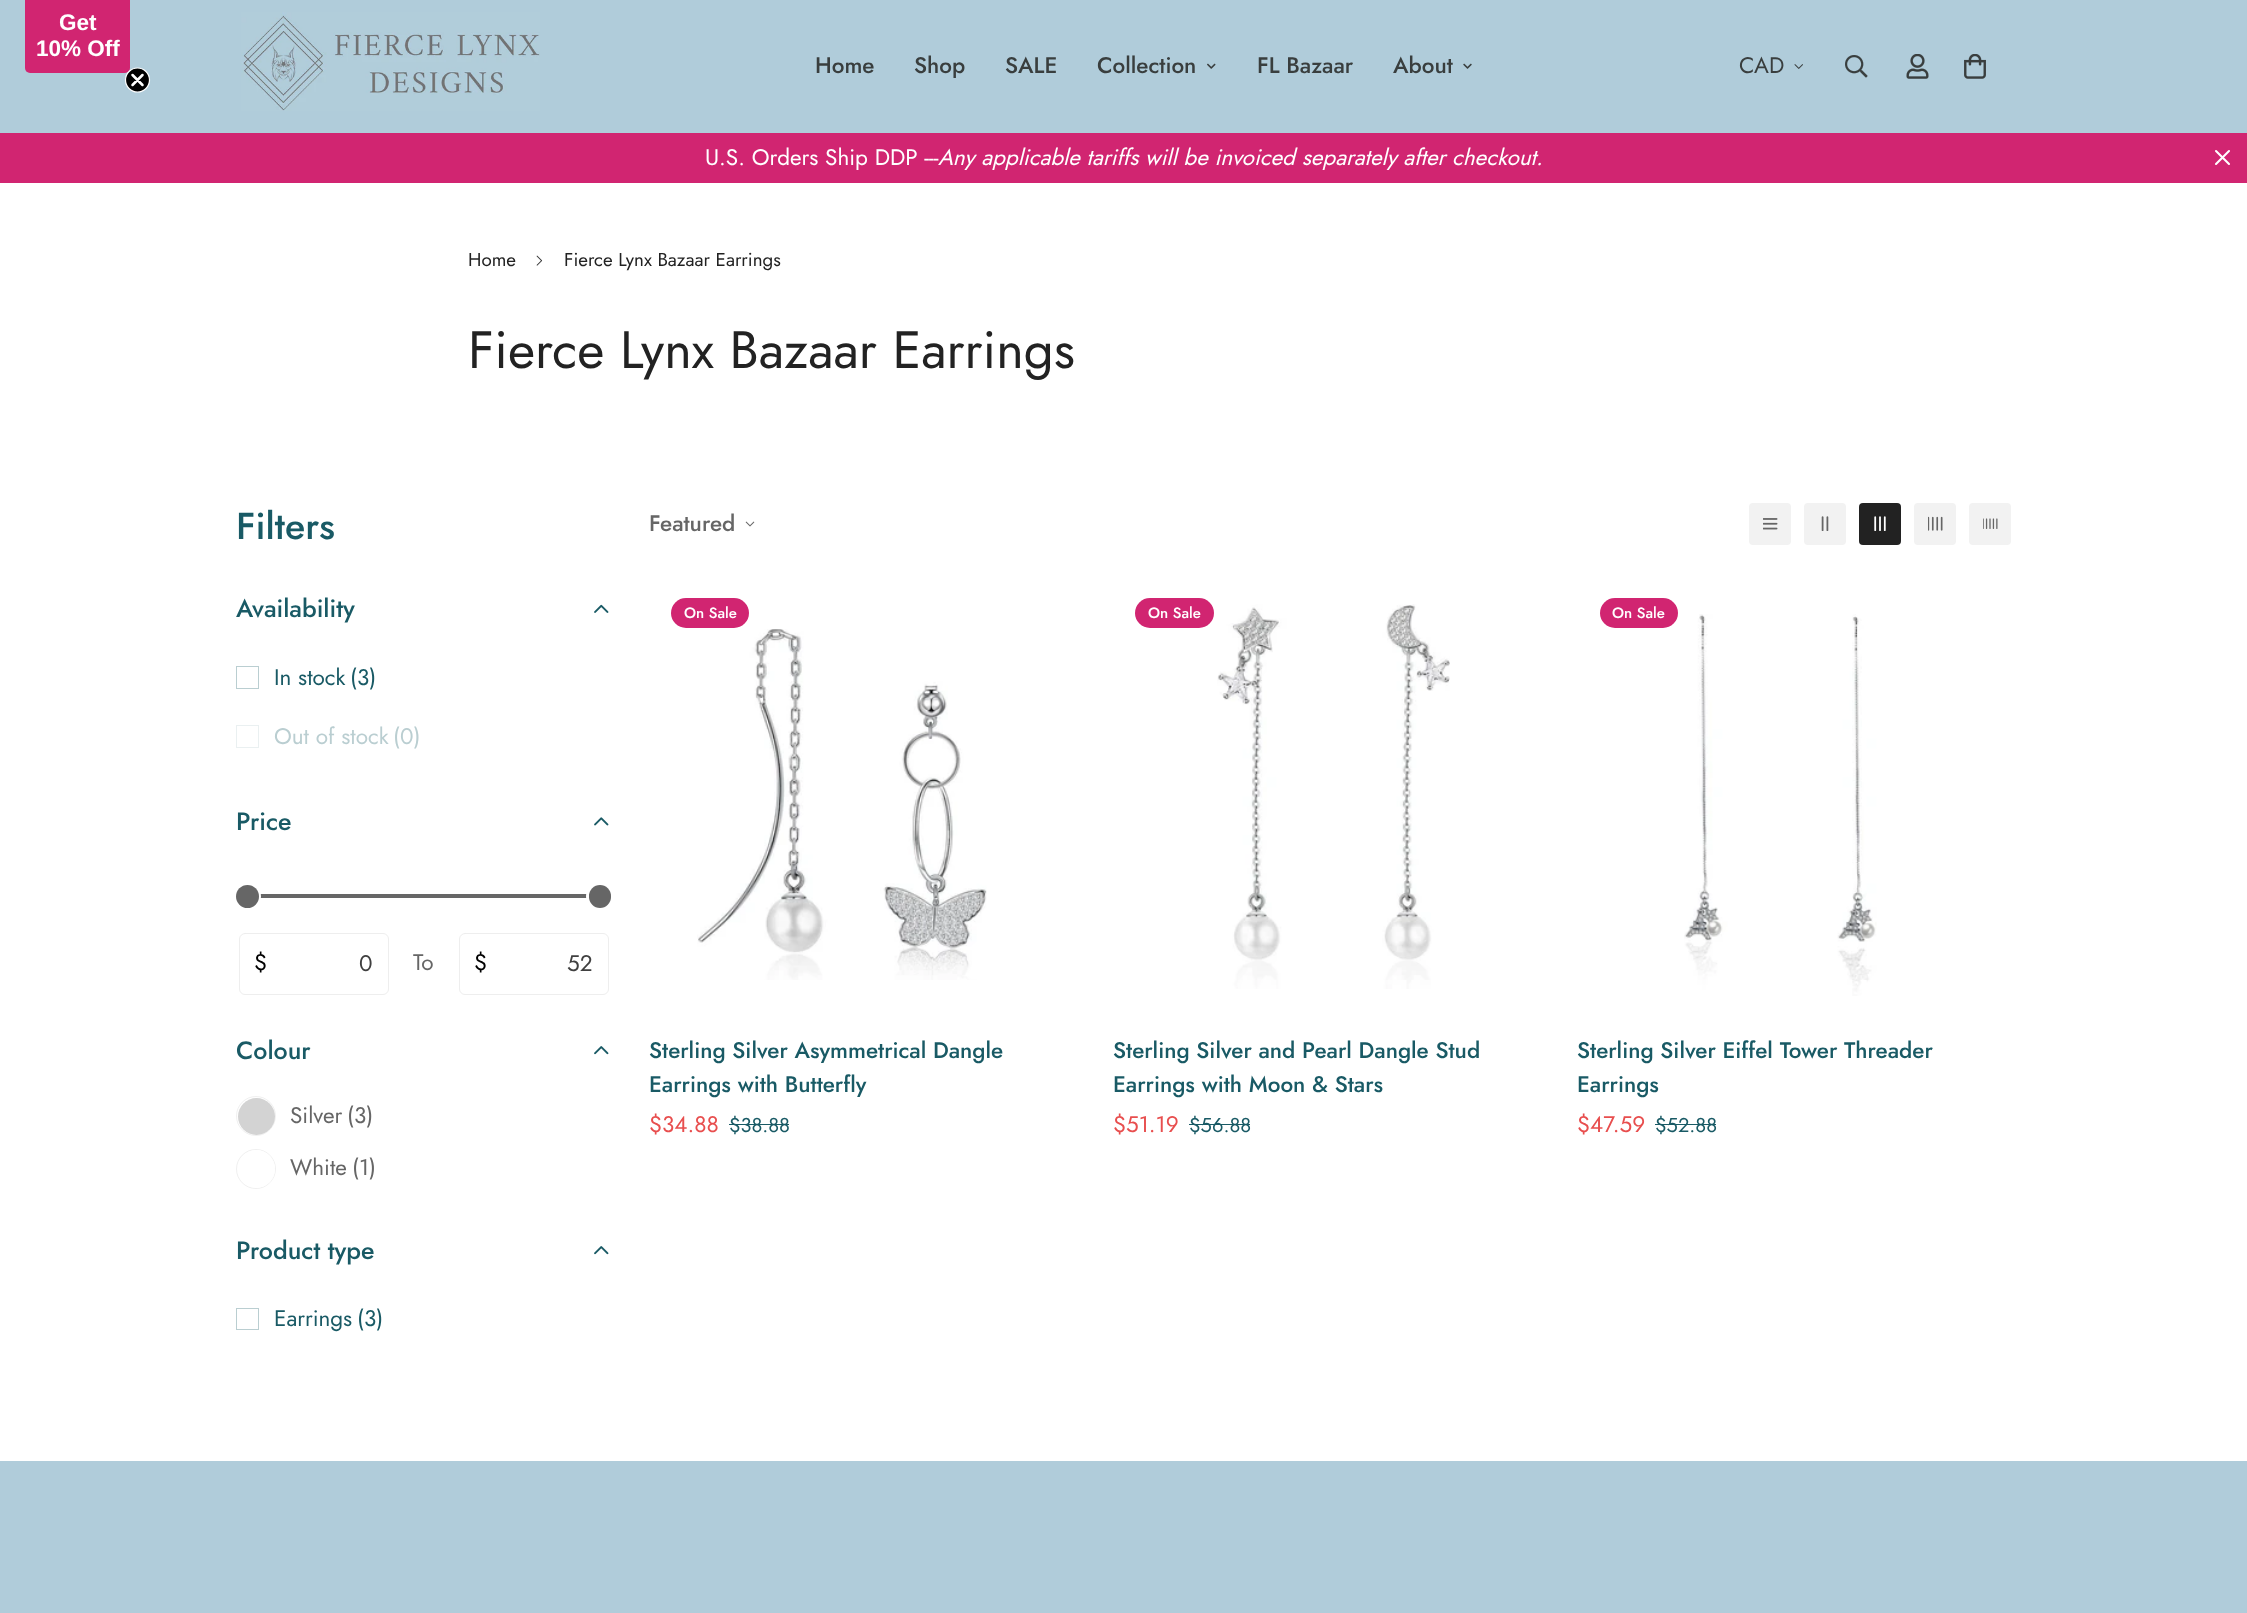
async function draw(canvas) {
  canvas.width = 2247
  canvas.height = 1613
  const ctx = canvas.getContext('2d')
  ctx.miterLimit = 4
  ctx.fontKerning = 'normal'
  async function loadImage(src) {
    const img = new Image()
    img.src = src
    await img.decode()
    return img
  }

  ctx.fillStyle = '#fff'
  ctx.fillRect(0, 0, 2247, 1613)
  ctx.fillStyle = '#b0ccda'
  ctx.fillRect(0, 0, 2247, 133)
  ctx.fillStyle = '#d12571'
  ctx.beginPath()
  ctx.roundRect(25, 0, 105, 73, [0, 0, 5, 5])
  ctx.fill()
  ctx.font = 'bold 22.5px Liberation Sans'
  ctx.fillStyle = '#fff'
  ctx.fillText('Get', 59, 30)
  ctx.fillText('10% Off', 36, 56)
  ctx.fillStyle = '#000'
  ctx.beginPath()
  ctx.arc(137.5, 80, 12, 0, 2 * Math.PI)
  ctx.fill()
  ctx.strokeStyle = '#fff'
  ctx.lineWidth = 1.2
  ctx.stroke()
  ctx.beginPath()
  ctx.moveTo(132.5, 75)
  ctx.lineTo(142.5, 85)
  ctx.moveTo(132.5, 85)
  ctx.lineTo(142.5, 75)
  ctx.closePath()
  ctx.lineWidth = 2.5
  ctx.lineCap = 'round'
  ctx.lineJoin = 'round'
  ctx.stroke()
  ctx.drawImage(await loadImage('image0.png'), 241, 12, 299, 99)
  ctx.font = '500 22.5px Jost'
  ctx.fillStyle = '#393e3e'
  ctx.fillText('Home', 815, 73)
  ctx.fillText('Shop', 914, 73)
  ctx.fillText('SALE', 1005, 73)
  ctx.fillText('Collection', 1097, 73)
  ctx.drawImage(await loadImage('image1.png'), 1207, 63, 9, 6)
  ctx.fillText('FL Bazaar', 1257, 73)
  ctx.fillText('About', 1393, 73)
  ctx.drawImage(await loadImage('image2.png'), 1463, 63, 9, 6)
  ctx.font = '22.5px Jost'
  ctx.fillText('CAD', 1739, 73)
  ctx.drawImage(await loadImage('image3.png'), 1794, 64, 9, 5)
  ctx.drawImage(await loadImage('image4.png'), 1845, 55, 23, 23)
  ctx.drawImage(await loadImage('image5.png'), 1906, 54, 23, 25)
  ctx.drawImage(await loadImage('image6.png'), 1964, 54, 22, 25)
  ctx.fillStyle = '#d12571'
  ctx.fillRect(0, 133, 2247, 50)
  ctx.fillStyle = '#fff'
  ctx.fillText('U.S. Orders Ship DDP ---', 705, 165)
  ctx.font = 'italic 22.5px Jost'
  ctx.fillText('Any applicable tariffs will be invoiced separately after checkout.', 938, 165)
  ctx.beginPath()
  ctx.moveTo(2216, 164)
  ctx.lineTo(2229, 151)
  ctx.moveTo(2216, 151)
  ctx.lineTo(2229, 164)
  ctx.lineWidth = 2.1
  ctx.stroke()
  ctx.font = '18.75px Jost'
  ctx.fillStyle = '#222'
  ctx.fillText('Home', 468, 266)
  ctx.drawImage(await loadImage('image7.png'), 536, 255, 7, 11)
  ctx.fillText('Fierce Lynx Bazaar Earrings', 564, 266)
  ctx.font = '52.5px Jost'
  ctx.fillText('Fierce Lynx Bazaar Earrings', 468, 368)
  ctx.font = '500 37.5px Jost'
  ctx.fillStyle = '#195a65'
  ctx.fillText('Filters', 236, 539)
  ctx.font = '500 25px Jost'
  ctx.fillText('Availability', 236, 617)
  ctx.drawImage(await loadImage('image8.png'), 594, 604, 15, 9)
  ctx.strokeStyle = '#baced1'
  ctx.lineWidth = 1
  ctx.lineJoin = 'miter'
  ctx.strokeRect(236.5, 666.5, 22, 22)
  ctx.font = '22.5px Jost'
  ctx.fillText('In stock', 274, 685)
  ctx.fillText('(3)', 350, 685)
  ctx.strokeStyle = '#eaf0f1'
  ctx.strokeRect(236.5, 725.5, 22, 22)
  ctx.fillStyle = '#baced1'
  ctx.fillText('Out of stock', 274, 744)
  ctx.fillText('(0)', 393, 744)
  ctx.font = '500 25px Jost'
  ctx.fillStyle = '#195a65'
  ctx.fillText('Price', 236, 830)
  ctx.drawImage(await loadImage('image9.png'), 594, 817, 15, 9)
  ctx.fillStyle = '#666'
  ctx.fillRect(260, 894, 330, 4)
  ctx.beginPath()
  ctx.arc(247.5, 896.5, 12, 0, 2 * Math.PI)
  ctx.strokeStyle = '#fff'
  ctx.lineWidth = 3
  ctx.stroke()
  ctx.beginPath()
  ctx.arc(247.5, 896.5, 11.5, 0, 2 * Math.PI)
  ctx.fill()
  ctx.beginPath()
  ctx.roundRect(587.5, 884.5, 25, 24, 12)
  ctx.stroke()
  ctx.beginPath()
  ctx.roundRect(589, 885, 22, 23, 11)
  ctx.fill()
  ctx.beginPath()
  ctx.roundRect(239.5, 933.5, 149, 61, 5.5)
  ctx.strokeStyle = '#eee'
  ctx.lineWidth = 1
  ctx.stroke()
  ctx.font = '22.5px Jost'
  ctx.fillStyle = '#000'
  ctx.fillText('$', 254, 970)
  ctx.fillStyle = '#404040'
  ctx.fillText('0', 359, 971)
  ctx.fillStyle = '#666'
  ctx.fillText('To', 413, 970)
  ctx.beginPath()
  ctx.roundRect(459.5, 933.5, 149, 61, 5.5)
  ctx.stroke()
  ctx.fillStyle = '#000'
  ctx.fillText('$', 474, 970)
  ctx.fillStyle = '#404040'
  ctx.fillText('52', 567, 971)
  ctx.font = '500 25px Jost'
  ctx.fillStyle = '#195a65'
  ctx.fillText('Colour', 236, 1059)
  ctx.drawImage(await loadImage('image10.png'), 594, 1046, 15, 9)
  ctx.beginPath()
  ctx.arc(256, 1116, 19.5, 0, 2 * Math.PI)
  ctx.strokeStyle = '#f0f0f0'
  ctx.stroke()
  ctx.fillStyle = '#d3d3d3'
  ctx.beginPath()
  ctx.arc(256.5, 1116.5, 18.5, 0, 2 * Math.PI)
  ctx.fill()
  ctx.font = '22.5px Jost'
  ctx.fillStyle = '#666'
  ctx.fillText('Silver', 290, 1123)
  ctx.fillText('(3)', 347, 1123)
  ctx.beginPath()
  ctx.arc(256, 1169, 19.5, 0, 2 * Math.PI)
  ctx.stroke()
  ctx.fillStyle = '#fff'
  ctx.beginPath()
  ctx.roundRect(238, 1150, 37, 38, 18.5)
  ctx.fill()
  ctx.fillStyle = '#666'
  ctx.fillText('White', 290, 1175)
  ctx.fillText('(1)', 352, 1175)
  ctx.font = '500 25px Jost'
  ctx.fillStyle = '#195a65'
  ctx.fillText('Product type', 236, 1259)
  ctx.drawImage(await loadImage('image10.png'), 594, 1246, 15, 9)
  ctx.strokeStyle = '#baced1'
  ctx.strokeRect(236.5, 1308.5, 22, 21)
  ctx.font = '22.5px Jost'
  ctx.fillText('Earrings', 274, 1326)
  ctx.fillText('(3)', 357, 1326)
  ctx.font = '500 22.5px Jost'
  ctx.fillStyle = '#666'
  ctx.fillText('Featured', 649, 531)
  ctx.drawImage(await loadImage('image11.png'), 745, 521, 10, 6)
  ctx.fillStyle = '#f2f2f2'
  ctx.beginPath()
  ctx.roundRect(1749, 503, 42, 42, 4)
  ctx.fill()
  ctx.drawImage(await loadImage('image12.png'), 1763, 518, 15, 12)
  ctx.beginPath()
  ctx.roundRect(1804, 503, 42, 42, 4)
  ctx.fill()
  ctx.drawImage(await loadImage('image13.png'), 1821, 516, 8, 15)
  ctx.fillStyle = '#222'
  ctx.beginPath()
  ctx.roundRect(1859, 503, 42, 42, 4)
  ctx.fill()
  ctx.drawImage(await loadImage('image14.png'), 1874, 516, 12, 15)
  ctx.fillStyle = '#f2f2f2'
  ctx.beginPath()
  ctx.roundRect(1914, 503, 42, 42, 4)
  ctx.fill()
  ctx.drawImage(await loadImage('image15.png'), 1928, 516, 15, 15)
  ctx.beginPath()
  ctx.roundRect(1969, 503, 42, 42, 4)
  ctx.fill()
  ctx.drawImage(await loadImage('image16.png'), 1983, 518, 15, 11)
  ctx.fillStyle = '#d12571'
  ctx.beginPath()
  ctx.roundRect(671, 598, 78, 30, 15)
  ctx.fill()
  ctx.font = '500 15px Jost'
  ctx.fillStyle = '#fff'
  ctx.fillText('On Sale', 684, 618)
  ctx.drawImage(await loadImage('image17.png'), 697, 629, 290, 351)
  ctx.font = '500 22.5px Jost'
  ctx.fillStyle = '#195a65'
  ctx.fillText('Sterling Silver Asymmetrical Dangle', 649, 1058)
  ctx.fillText('Earrings with Butterfly', 649, 1092)
  ctx.font = '22.5px Jost'
  ctx.fillStyle = '#e84e4e'
  ctx.fillText('$34.88', 649, 1132)
  ctx.font = '20px Jost'
  ctx.fillStyle = '#195a65'
  ctx.fillText('$38.88', 729, 1132)
  ctx.fillRect(729, 1124, 60, 1)
  ctx.fillStyle = '#d12571'
  ctx.beginPath()
  ctx.roundRect(1135, 598, 79, 30, 15)
  ctx.fill()
  ctx.font = '500 15px Jost'
  ctx.fillStyle = '#fff'
  ctx.fillText('On Sale', 1148, 618)
  ctx.drawImage(await loadImage('image18.png'), 1217, 604, 233, 385)
  ctx.font = '500 22.5px Jost'
  ctx.fillStyle = '#195a65'
  ctx.fillText('Sterling Silver and Pearl Dangle Stud', 1113, 1058)
  ctx.fillText('Earrings with Moon & Stars', 1113, 1092)
  ctx.font = '22.5px Jost'
  ctx.fillStyle = '#e84e4e'
  ctx.fillText('$51.19', 1113, 1132)
  ctx.font = '20px Jost'
  ctx.fillStyle = '#195a65'
  ctx.fillText('$56.88', 1189, 1132)
  ctx.fillRect(1189, 1124, 61, 1)
  ctx.fillStyle = '#d12571'
  ctx.beginPath()
  ctx.roundRect(1600, 598, 78, 30, 15)
  ctx.fill()
  ctx.font = '500 15px Jost'
  ctx.fillStyle = '#fff'
  ctx.fillText('On Sale', 1612, 618)
  ctx.drawImage(await loadImage('image19.png'), 1684, 614, 193, 382)
  ctx.font = '500 22.5px Jost'
  ctx.fillStyle = '#195a65'
  ctx.fillText('Sterling Silver Eiffel Tower Threader', 1577, 1058)
  ctx.fillText('Earrings', 1577, 1092)
  ctx.font = '22.5px Jost'
  ctx.fillStyle = '#e84e4e'
  ctx.fillText('$47.59', 1577, 1132)
  ctx.font = '20px Jost'
  ctx.fillStyle = '#195a65'
  ctx.fillText('$52.88', 1655, 1132)
  ctx.fillRect(1655, 1124, 61, 1)
  ctx.fillStyle = '#b0ccda'
  ctx.fillRect(0, 1461, 2247, 152)
}

draw(document.querySelector('canvas'))
